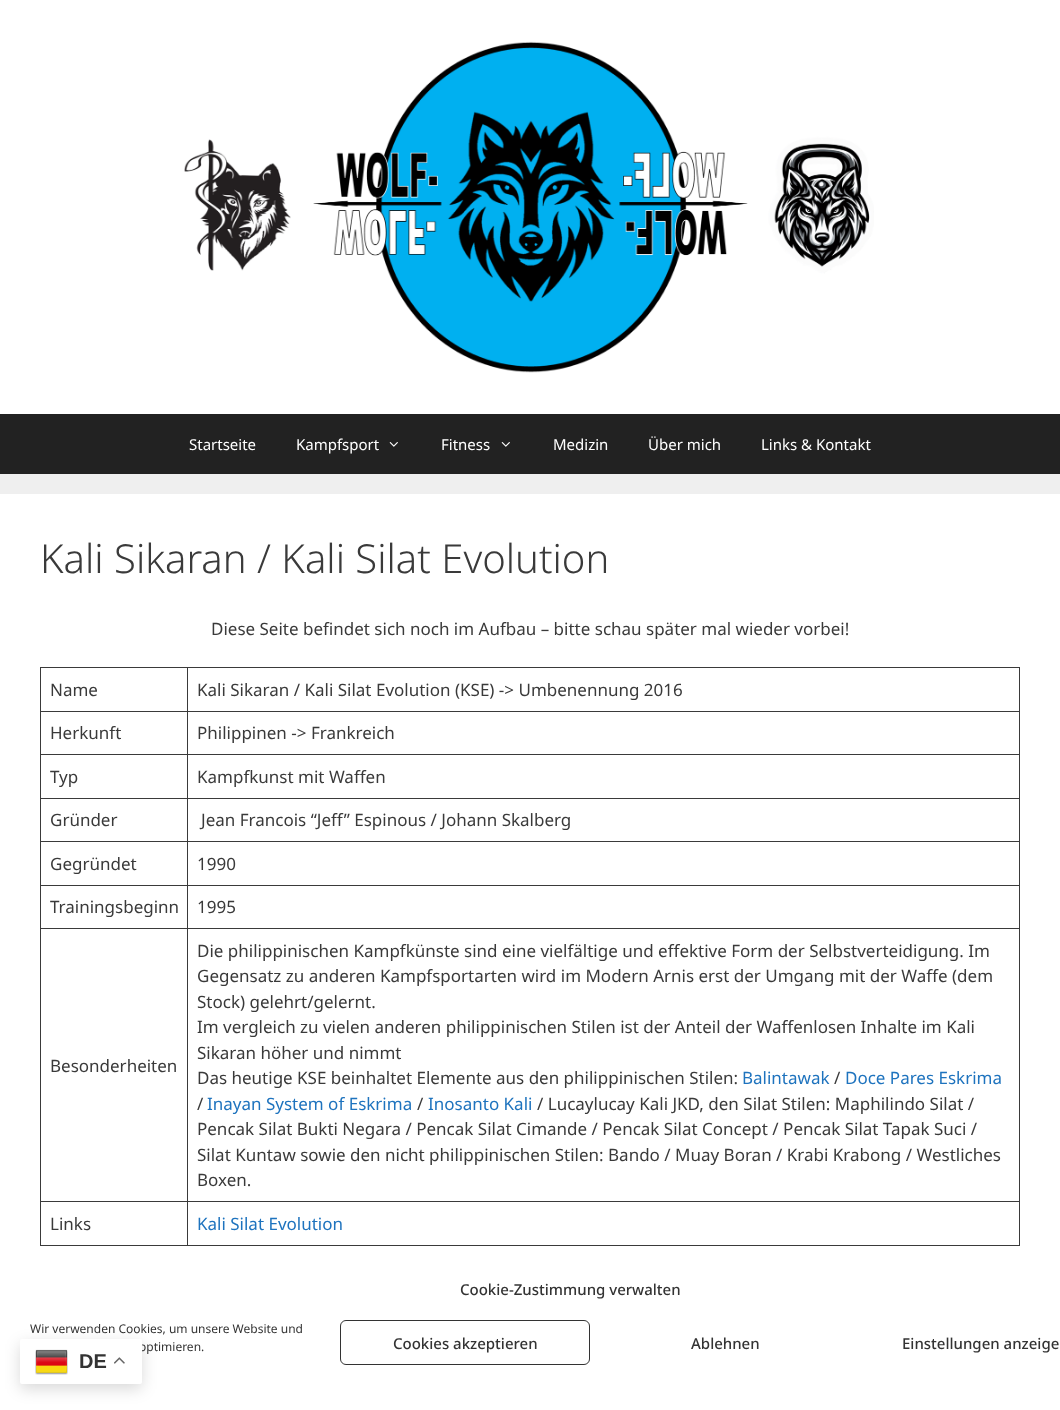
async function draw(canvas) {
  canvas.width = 1060
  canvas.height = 1410
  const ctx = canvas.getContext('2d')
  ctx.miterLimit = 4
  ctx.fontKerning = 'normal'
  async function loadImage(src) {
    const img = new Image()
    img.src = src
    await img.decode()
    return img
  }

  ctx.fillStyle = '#efefef'
  ctx.fillRect(0, 0, 1060, 1410)
  ctx.fillStyle = '#fff'
  ctx.fillRect(0, 0, 1060, 414)
  ctx.drawImage(await loadImage('image0.png'), 184, 41, 690, 332)
  ctx.fillStyle = '#222'
  ctx.fillRect(0, 414, 1060, 60)
  ctx.font = '15px Noto Sans'
  ctx.fillStyle = '#fff'
  ctx.fillText('Startseite', 189, 450)
  ctx.fillText('Kampfsport', 296, 450)
  ctx.drawImage(await loadImage('image1.png'), 389, 442, 9, 5)
  ctx.fillText('Fitness', 441, 450)
  ctx.drawImage(await loadImage('image1.png'), 501, 442, 9, 5)
  ctx.fillText('Medizin', 553, 450)
  ctx.fillText('Über mich', 648, 450)
  ctx.fillText('Links & Kontakt', 761, 450)
  ctx.fillRect(0, 494, 1060, 916)
  ctx.font = '300 40px Noto Sans'
  ctx.fillStyle = '#3a3a3a'
  ctx.fillText('Kali Sikaran / Kali Silat Evolution', 40, 573)
  ctx.font = '17px Noto Sans'
  ctx.fillText('Diese Seite befindet sich noch im Aufbau – bitte schau später mal wieder vorbei!', 211, 635)
  ctx.fillRect(187, 667, 833, 1)
  ctx.fillRect(187, 711, 833, 1)
  ctx.fillRect(187, 754, 833, 1)
  ctx.fillRect(187, 798, 833, 1)
  ctx.fillRect(187, 841, 833, 1)
  ctx.fillRect(187, 885, 833, 1)
  ctx.fillRect(187, 928, 833, 1)
  ctx.fillRect(187, 1201, 833, 1)
  ctx.fillRect(1019, 1201, 1, 45)
  ctx.fillRect(187, 1245, 833, 1)
  ctx.fillRect(187, 1201, 1, 45)
  ctx.fillRect(40, 1201, 148, 1)
  ctx.fillRect(187, 928, 1, 274)
  ctx.fillRect(40, 928, 148, 1)
  ctx.fillRect(187, 885, 1, 44)
  ctx.fillRect(40, 885, 148, 1)
  ctx.fillRect(187, 841, 1, 45)
  ctx.fillRect(40, 841, 148, 1)
  ctx.fillRect(187, 798, 1, 44)
  ctx.fillRect(40, 798, 148, 1)
  ctx.fillRect(187, 754, 1, 45)
  ctx.fillRect(40, 754, 148, 1)
  ctx.fillRect(187, 711, 1, 44)
  ctx.fillRect(40, 711, 148, 1)
  ctx.fillRect(187, 667, 1, 45)
  ctx.fillRect(40, 667, 148, 1)
  ctx.fillRect(40, 1245, 148, 1)
  ctx.fillRect(40, 1201, 1, 45)
  ctx.fillRect(40, 928, 1, 274)
  ctx.fillRect(40, 885, 1, 44)
  ctx.fillRect(40, 841, 1, 45)
  ctx.fillRect(40, 798, 1, 44)
  ctx.fillRect(40, 754, 1, 45)
  ctx.fillRect(40, 711, 1, 44)
  ctx.fillRect(40, 667, 1, 45)
  ctx.fillText('Name', 50, 696)
  ctx.fillRect(1019, 928, 1, 274)
  ctx.fillRect(1019, 885, 1, 44)
  ctx.fillRect(1019, 841, 1, 45)
  ctx.fillRect(1019, 798, 1, 44)
  ctx.fillRect(1019, 754, 1, 45)
  ctx.fillRect(1019, 711, 1, 44)
  ctx.fillRect(1019, 667, 1, 45)
  ctx.fillText('Kali Sikaran / Kali Silat Evolution (KSE) -> Umbenennung 2016', 197, 696)
  ctx.fillText('Herkunft', 50, 739)
  ctx.fillText('Philippinen -> Frankreich', 197, 739)
  ctx.fillText('Typ', 50, 783)
  ctx.fillText('Kampfkunst mit Waffen', 197, 783)
  ctx.fillText('Gründer', 50, 826)
  ctx.fillText('Jean Francois “Jeff” Espinous / Johann Skalberg', 201, 826)
  ctx.fillText('Gegründet', 50, 870)
  ctx.fillText('1990', 197, 870)
  ctx.fillText('Trainingsbeginn', 50, 913)
  ctx.fillText('1995', 197, 913)
  ctx.fillText('Besonderheiten', 50, 1072)
  ctx.fillText('Die philippinischen Kampfkünste sind eine vielfältige und effektive Form der Selbstverteidigung. Im', 197, 957)
  ctx.fillText('Gegensatz zu anderen Kampfsportarten wird im Modern Arnis erst der Umgang mit der Waffe (dem', 197, 982)
  ctx.fillText('Stock) gelehrt/gelernt.', 197, 1008)
  ctx.fillText('Im vergleich zu vielen anderen philippinischen Stilen ist der Anteil der Waffenlosen Inhalte im Kali', 197, 1033)
  ctx.fillText('Sikaran höher und nimmt', 197, 1059)
  ctx.fillText('Das heutige KSE beinhaltet Elemente aus den philippinischen Stilen:', 197, 1084)
  ctx.fillStyle = '#1e73be'
  ctx.fillText('Balintawak', 742, 1084)
  ctx.fillStyle = '#3a3a3a'
  ctx.fillText('/', 834, 1084)
  ctx.fillStyle = '#1e73be'
  ctx.fillText('Doce Pares Eskrima', 845, 1084)
  ctx.fillStyle = '#3a3a3a'
  ctx.fillText('/', 197, 1110)
  ctx.fillStyle = '#1e73be'
  ctx.fillText('Inayan System of Eskrima', 207, 1110)
  ctx.fillStyle = '#3a3a3a'
  ctx.fillText('/', 417, 1110)
  ctx.fillStyle = '#1e73be'
  ctx.fillText('Inosanto Kali', 428, 1110)
  ctx.fillStyle = '#3a3a3a'
  ctx.fillText('/ Lucaylucay Kali JKD, den Silat Stilen: Maphilindo Silat /', 537, 1110)
  ctx.fillText('Pencak Silat Bukti Negara / Pencak Silat Cimande / Pencak Silat Concept / Pencak Silat Tapak Suci /', 197, 1135)
  ctx.fillText('Silat Kuntaw sowie den nicht philippinischen Stilen: Bando / Muay Boran / Krabi Krabong / Westliches', 197, 1161)
  ctx.fillText('Boxen.', 197, 1186)
  ctx.fillText('Links', 50, 1230)
  ctx.fillStyle = '#1e73be'
  ctx.fillText('Kali Silat Evolution', 197, 1230)
  ctx.font = '500 15px Noto Sans'
  ctx.fillStyle = '#333'
  ctx.fillText('Cookie-Zustimmung verwalten', 460, 1295)
  ctx.font = '12px Noto Sans'
  ctx.fillText('Wir verwenden Cookies, um unsere Website und', 30, 1333)
  ctx.fillText('optimieren.', 139, 1351)
  ctx.beginPath()
  ctx.roundRect(340.5, 1320.5, 249, 44, 5.5)
  ctx.strokeStyle = '#333'
  ctx.stroke()
  ctx.font = '500 15px Noto Sans'
  ctx.fillText('Cookies akzeptieren', 393, 1349)
  ctx.fillText('Ablehnen', 691, 1349)
  ctx.fillText('Einstellungen anzeige', 902, 1349)
  ctx.fillStyle = '#00000026'
  ctx.filter = 'blur(7.5px)'
  ctx.beginPath()
  ctx.roundRect(20, 1344, 122, 45, 2)
  ctx.fill()
  ctx.filter = 'none'
  ctx.fillStyle = '#fff'
  ctx.beginPath()
  ctx.roundRect(20, 1339, 122, 45, 2)
  ctx.fill()
  ctx.drawImage(await loadImage('image2.png'), 35, 1349, 33, 26)
  ctx.font = 'bold 20px Liberation Sans'
  ctx.fillStyle = '#333'
  ctx.fillText('DE', 79, 1368)
  ctx.drawImage(await loadImage('image3.png'), 114, 1357, 11, 7)
}

draw(document.querySelector('canvas'))
